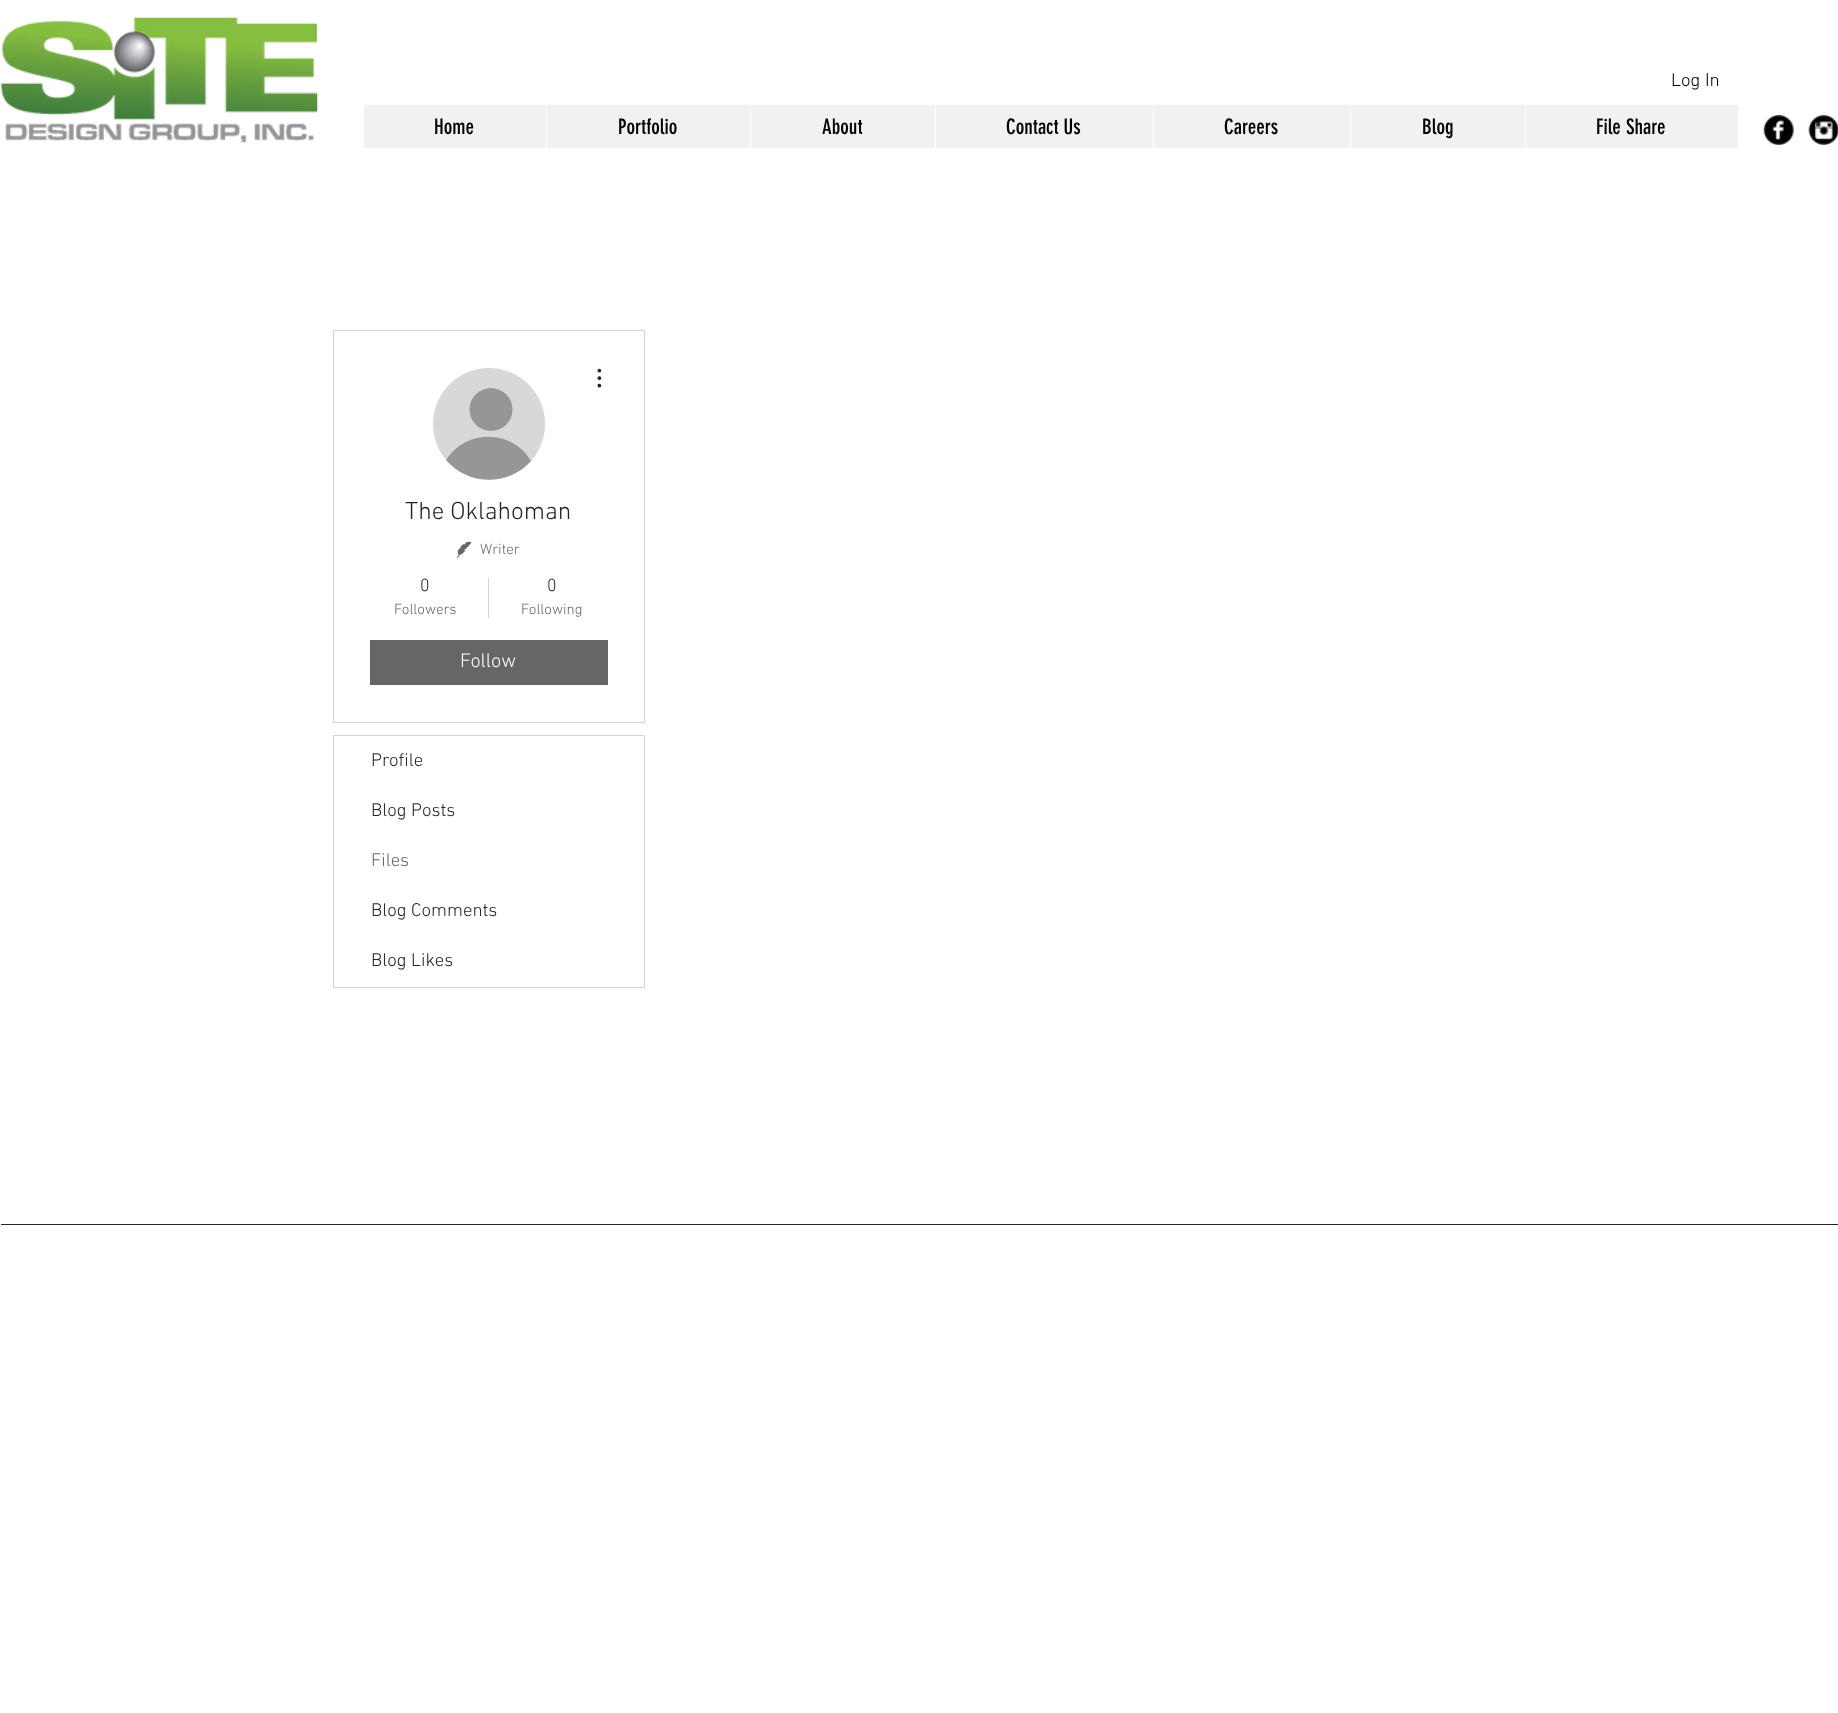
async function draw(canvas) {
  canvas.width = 1838
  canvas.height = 1713
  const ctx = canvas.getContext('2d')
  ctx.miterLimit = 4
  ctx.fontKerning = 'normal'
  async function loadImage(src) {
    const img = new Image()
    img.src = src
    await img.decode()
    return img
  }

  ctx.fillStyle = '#fff'
  ctx.fillRect(0, 0, 1838, 1713)
  ctx.font = '300 18.75px "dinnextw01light"'
  ctx.fillStyle = '#000'
  ctx.fillText('Log In', 1671, 86)
  ctx.strokeStyle = '#d3d3d3'
  ctx.strokeRect(333.5, 330.5, 311, 392)
  ctx.fillStyle = '#d8d8d8'
  ctx.beginPath()
  ctx.arc(489, 424, 56, 0, 2 * Math.PI)
  ctx.fill()
  ctx.fillStyle = '#969696'
  ctx.beginPath()
  ctx.arc(491, 409.5, 21.5, 0, 2 * Math.PI)
  ctx.fill()
  ctx.beginPath()
  ctx.moveTo(531, 461)
  ctx.bezierCurveTo(509, 486, 468, 486, 446, 460)
  ctx.bezierCurveTo(466, 429, 512, 429, 531, 461)
  ctx.closePath()
  ctx.fill()
  ctx.drawImage(await loadImage('image0.png'), 597, 368, 5, 20)
  ctx.font = '300 25px "dinnextw01light"'
  ctx.fillStyle = '#242424'
  ctx.fillText('The Oklahoman', 405, 519)
  ctx.drawImage(await loadImage('image1.png'), 457, 541, 15, 18)
  ctx.font = '300 15px "dinnextw01light"'
  ctx.fillStyle = '#666'
  ctx.fillText('Writer', 480, 554)
  ctx.font = '300 18px "dinnextw01light"'
  ctx.fillStyle = '#242424'
  ctx.fillText('0', 420, 591)
  ctx.font = '300 15px "dinnextw01light"'
  ctx.fillStyle = '#666'
  ctx.fillText('Followers', 394, 614)
  ctx.fillStyle = '#d3d3d3'
  ctx.fillRect(488, 578, 1, 40)
  ctx.font = '300 18px "dinnextw01light"'
  ctx.fillStyle = '#242424'
  ctx.fillText('0', 547, 591)
  ctx.font = '300 15px "dinnextw01light"'
  ctx.fillStyle = '#666'
  ctx.fillText('Following', 521, 614)
  ctx.fillRect(370, 640, 238, 45)
  ctx.font = '300 20px "dinnextw01light"'
  ctx.fillStyle = '#fff'
  ctx.fillText('Follow', 460, 667)
  ctx.strokeRect(333.5, 735.5, 311, 252)
  ctx.font = '300 18.75px "dinnextw01light"'
  ctx.fillStyle = '#242424'
  ctx.fillText('Profile', 371, 766)
  ctx.fillText('Blog Posts', 371, 816)
  ctx.fillStyle = '#666'
  ctx.fillText('Files', 371, 866)
  ctx.fillStyle = '#242424'
  ctx.fillText('Blog Comments', 371, 916)
  ctx.fillText('Blog Likes', 371, 966)
  ctx.drawImage(await loadImage('image2.png'), 1, 17, 317, 126)
  ctx.fillStyle = '#f1f1f1'
  ctx.fillRect(364, 105, 1374, 43)
  ctx.font = '21px "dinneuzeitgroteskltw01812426"'
  ctx.fillStyle = '#000'
  ctx.fillText('Home', 434, 134)
  ctx.fillStyle = '#fff'
  ctx.fillRect(546, 105, 1, 43)
  ctx.fillStyle = '#000'
  ctx.fillText('Portfolio', 618, 134)
  ctx.fillStyle = '#fff'
  ctx.fillRect(750, 105, 1, 43)
  ctx.fillStyle = '#000'
  ctx.fillText('About', 822, 134)
  ctx.fillStyle = '#fff'
  ctx.fillRect(935, 105, 1, 43)
  ctx.fillStyle = '#000'
  ctx.fillText('Contact Us', 1006, 134)
  ctx.fillStyle = '#fff'
  ctx.fillRect(1153, 105, 1, 43)
  ctx.fillStyle = '#000'
  ctx.fillText('Careers', 1224, 134)
  ctx.fillStyle = '#fff'
  ctx.fillRect(1350, 105, 1, 43)
  ctx.fillStyle = '#000'
  ctx.fillText('Blog', 1422, 134)
  ctx.fillStyle = '#fff'
  ctx.fillRect(1525, 105, 1, 43)
  ctx.fillStyle = '#000'
  ctx.fillText('File Share', 1596, 134)
  ctx.drawImage(await loadImage('image3.png'), 1763, 115, 31, 30)
  ctx.drawImage(await loadImage('image4.png'), 1808, 115, 30, 30)
  ctx.fillStyle = '#242424'
  ctx.fillRect(1, 1224, 1837, 1)
}

draw(document.querySelector('canvas'))
